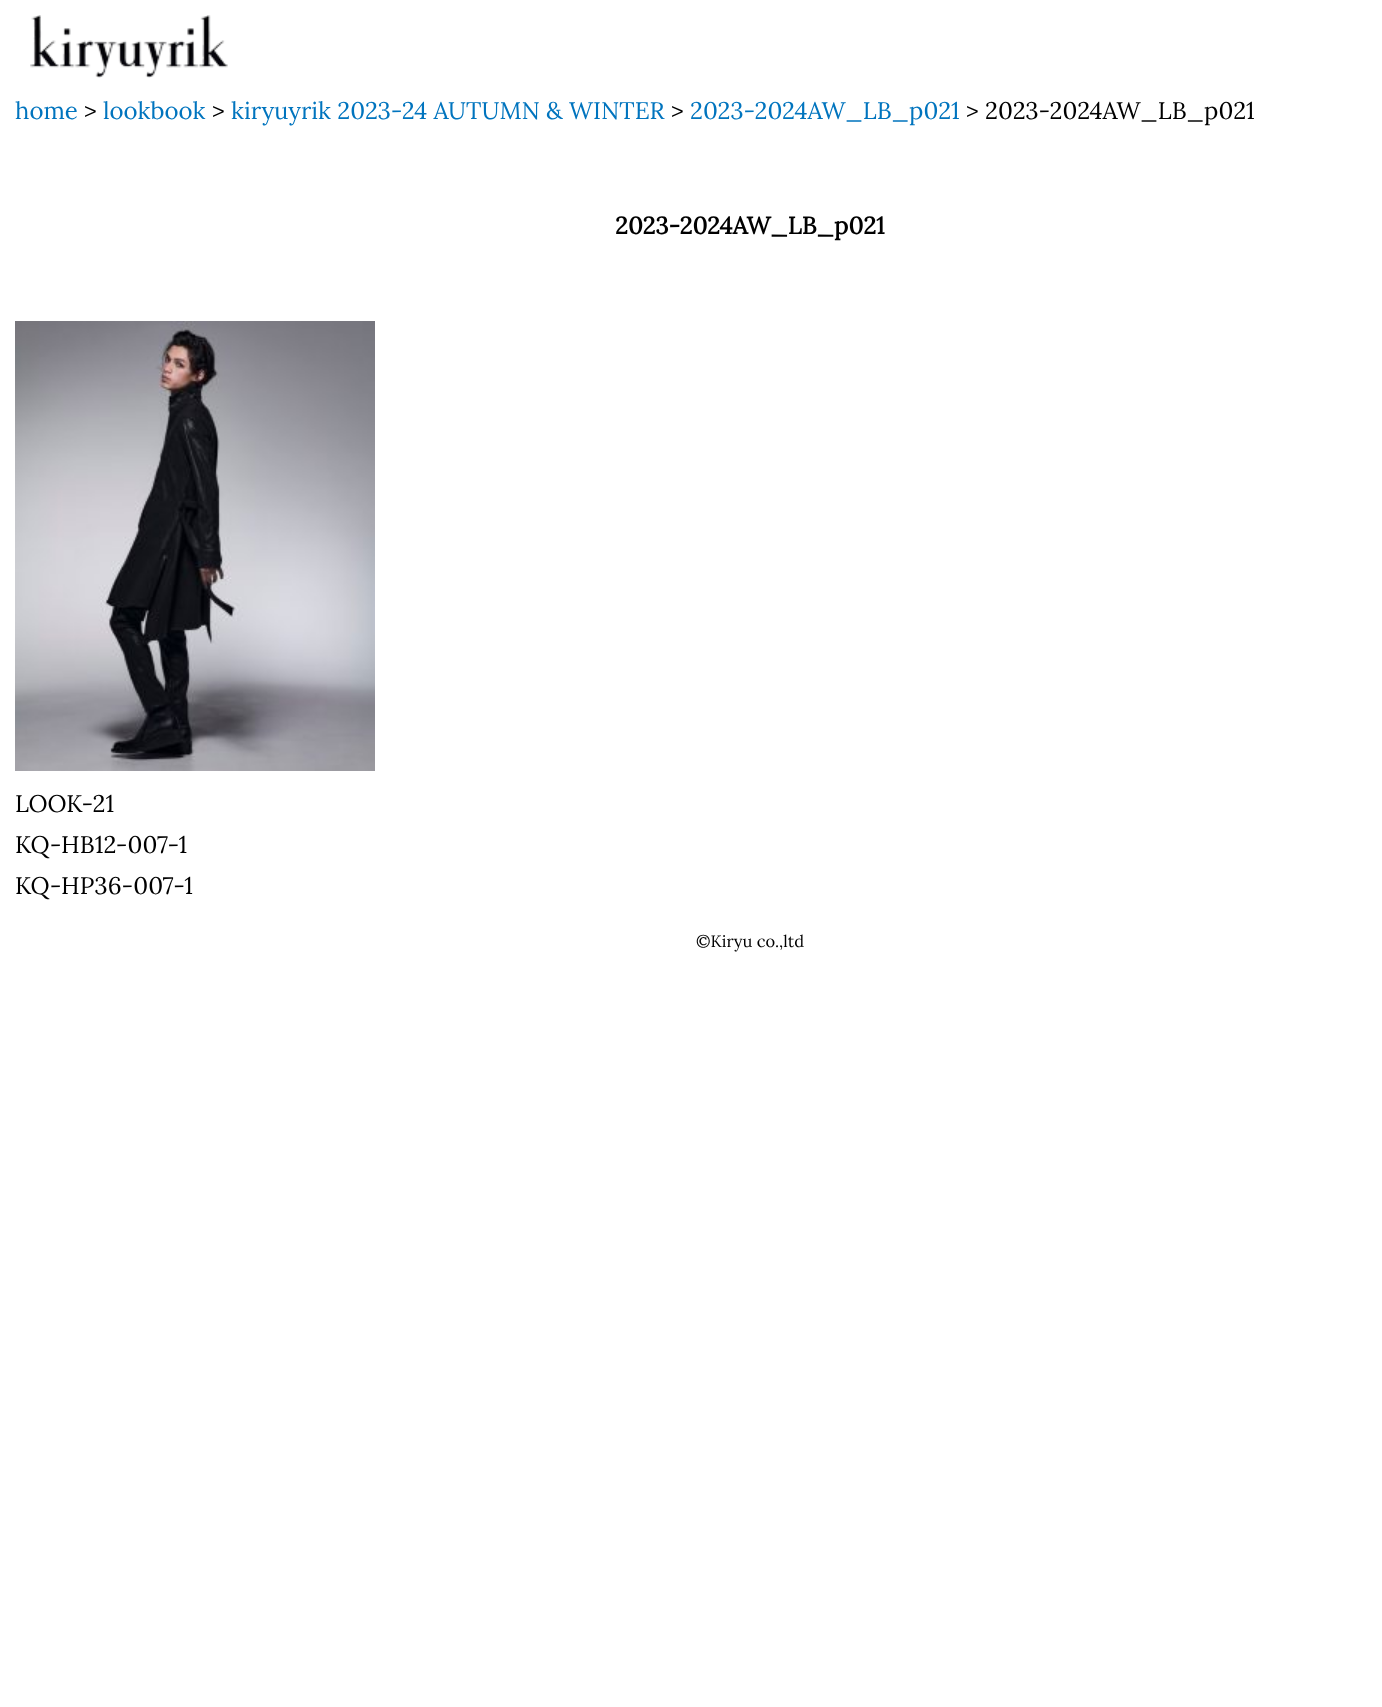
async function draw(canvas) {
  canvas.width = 1382
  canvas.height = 1707
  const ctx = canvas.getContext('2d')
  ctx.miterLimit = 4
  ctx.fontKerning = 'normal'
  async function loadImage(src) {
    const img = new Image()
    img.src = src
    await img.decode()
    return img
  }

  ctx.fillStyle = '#fff'
  ctx.fillRect(0, 0, 1382, 1707)
  ctx.drawImage(await loadImage('image0.png'), 30, 15, 198, 63)
  ctx.font = '24px Lora'
  ctx.fillStyle = '#0074be'
  ctx.fillText('home', 15, 119)
  ctx.fillStyle = '#000'
  ctx.fillText('>', 84, 119)
  ctx.fillStyle = '#0074be'
  ctx.fillText('lookbook', 103, 119)
  ctx.fillStyle = '#000'
  ctx.fillText('>', 212, 119)
  ctx.fillStyle = '#0074be'
  ctx.fillText('kiryuyrik 2023-24 AUTUMN & WINTER', 231, 119)
  ctx.fillStyle = '#000'
  ctx.fillText('>', 671, 119)
  ctx.fillStyle = '#0074be'
  ctx.fillText('2023-2024AW_LB_p021', 690, 119)
  ctx.fillStyle = '#000'
  ctx.fillText('> 2023-2024AW_LB_p021', 966, 119)
  ctx.font = 'bold 24px Lora'
  ctx.fillText('2023-2024AW_LB_p021', 615, 234)
  ctx.drawImage(await loadImage('image1.png'), 15, 321, 360, 450)
  ctx.font = '24px Lora'
  ctx.fillText('LOOK-21', 15, 812)
  ctx.fillText('KQ-HB12-007-1', 15, 853)
  ctx.fillText('KQ-HP36-007-1', 15, 894)
  ctx.font = '16.5px Lora'
  ctx.fillText('©Kiryu co.,ltd', 696, 947)
}

draw(document.querySelector('canvas'))
